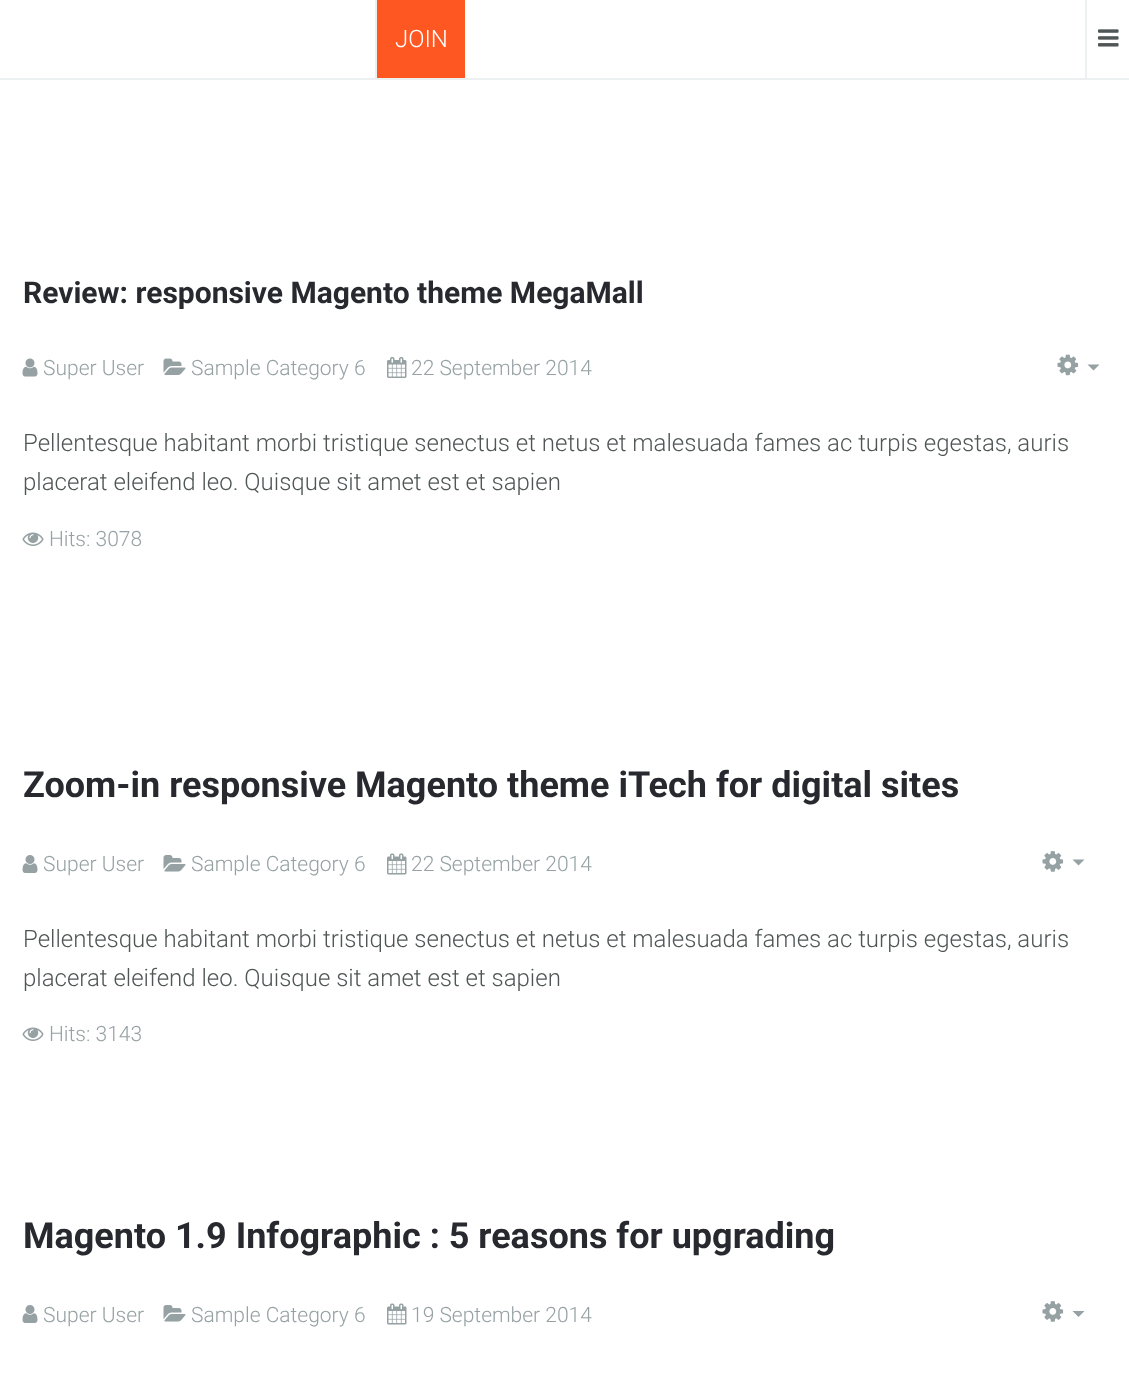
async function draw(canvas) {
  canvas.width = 1129
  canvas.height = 1384
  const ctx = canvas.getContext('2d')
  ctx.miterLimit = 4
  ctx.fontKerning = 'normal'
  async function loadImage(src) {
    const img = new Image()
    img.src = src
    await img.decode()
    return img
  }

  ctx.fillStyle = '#fff'
  ctx.fillRect(0, 0, 1129, 1384)
  ctx.fillStyle = '#ecf0f1'
  ctx.fillRect(0, 78, 1129, 2)
  ctx.fillStyle = '#ff5722'
  ctx.fillRect(377, 0, 88, 78)
  ctx.fillStyle = '#ecf0f1'
  ctx.fillRect(375, 0, 2, 78)
  ctx.font = '300 24px Roboto'
  ctx.fillStyle = '#fff'
  ctx.fillText('JOIN', 395, 47)
  ctx.fillStyle = '#ecf0f1'
  ctx.fillRect(1085, 0, 2, 78)
  ctx.drawImage(await loadImage('image0.png'), 1098, 29, 21, 18)
  ctx.font = 'bold 30px Roboto'
  ctx.fillStyle = '#27292e'
  ctx.fillText('Review: responsive Magento theme MegaMall', 23, 303)
  ctx.drawImage(await loadImage('image1.png'), 22, 358, 16, 19)
  ctx.font = '300 21px Roboto'
  ctx.fillStyle = '#96a1a3'
  ctx.fillText('Super User', 43, 375)
  ctx.drawImage(await loadImage('image2.png'), 163, 358, 23, 17)
  ctx.fillText('Sample Category 6', 191, 375)
  ctx.drawImage(await loadImage('image3.png'), 387, 357, 20, 21)
  ctx.fillText('22 September 2014', 411, 375)
  ctx.drawImage(await loadImage('image4.png'), 1057, 354, 22, 22)
  ctx.beginPath()
  ctx.moveTo(1087.5, 364.5)
  ctx.lineTo(1099.5, 364.5)
  ctx.lineTo(1093.5, 370.5)
  ctx.closePath()
  ctx.fill()
  ctx.font = '300 24px Roboto'
  ctx.fillStyle = '#505656'
  ctx.fillText('Pellentesque habitant morbi tristique senectus et netus et malesuada fames ac turpis egestas, auris', 23, 451)
  ctx.fillText('placerat eleifend leo. Quisque sit amet est et sapien', 23, 490)
  ctx.drawImage(await loadImage('image5.png'), 22, 532, 22, 14)
  ctx.font = '300 21px Roboto'
  ctx.fillStyle = '#96a1a3'
  ctx.fillText('Hits: 3078', 49, 546)
  ctx.font = 'bold 36px Roboto'
  ctx.fillStyle = '#27292e'
  ctx.fillText('Zoom-in responsive Magento theme iTech for digital sites', 23, 797)
  ctx.drawImage(await loadImage('image6.png'), 22, 855, 16, 18)
  ctx.font = '300 21px Roboto'
  ctx.fillStyle = '#96a1a3'
  ctx.fillText('Super User', 43, 871)
  ctx.drawImage(await loadImage('image7.png'), 163, 855, 23, 17)
  ctx.fillText('Sample Category 6', 191, 871)
  ctx.drawImage(await loadImage('image8.png'), 387, 853, 20, 22)
  ctx.fillText('22 September 2014', 411, 871)
  ctx.drawImage(await loadImage('image9.png'), 1042, 851, 22, 21)
  ctx.beginPath()
  ctx.moveTo(1072.5, 859.5)
  ctx.lineTo(1084.5, 859.5)
  ctx.lineTo(1078.5, 865.5)
  ctx.closePath()
  ctx.fill()
  ctx.font = '300 24px Roboto'
  ctx.fillStyle = '#505656'
  ctx.fillText('Pellentesque habitant morbi tristique senectus et netus et malesuada fames ac turpis egestas, auris', 23, 947)
  ctx.fillText('placerat eleifend leo. Quisque sit amet est et sapien', 23, 986)
  ctx.drawImage(await loadImage('image5.png'), 22, 1027, 22, 14)
  ctx.font = '300 21px Roboto'
  ctx.fillStyle = '#96a1a3'
  ctx.fillText('Hits: 3143', 49, 1041)
  ctx.font = 'bold 36px Roboto'
  ctx.fillStyle = '#27292e'
  ctx.fillText('Magento 1.9 Infographic : 5 reasons for upgrading', 23, 1248)
  ctx.drawImage(await loadImage('image6.png'), 22, 1305, 16, 18)
  ctx.font = '300 21px Roboto'
  ctx.fillStyle = '#96a1a3'
  ctx.fillText('Super User', 43, 1322)
  ctx.drawImage(await loadImage('image7.png'), 163, 1305, 23, 17)
  ctx.fillText('Sample Category 6', 191, 1322)
  ctx.drawImage(await loadImage('image8.png'), 387, 1303, 20, 22)
  ctx.fillText('19 September 2014', 411, 1322)
  ctx.drawImage(await loadImage('image9.png'), 1042, 1301, 22, 21)
  ctx.beginPath()
  ctx.moveTo(1072.5, 1311)
  ctx.lineTo(1084.5, 1311)
  ctx.lineTo(1078.5, 1317)
  ctx.closePath()
  ctx.fill()
}

draw(document.querySelector('canvas'))
